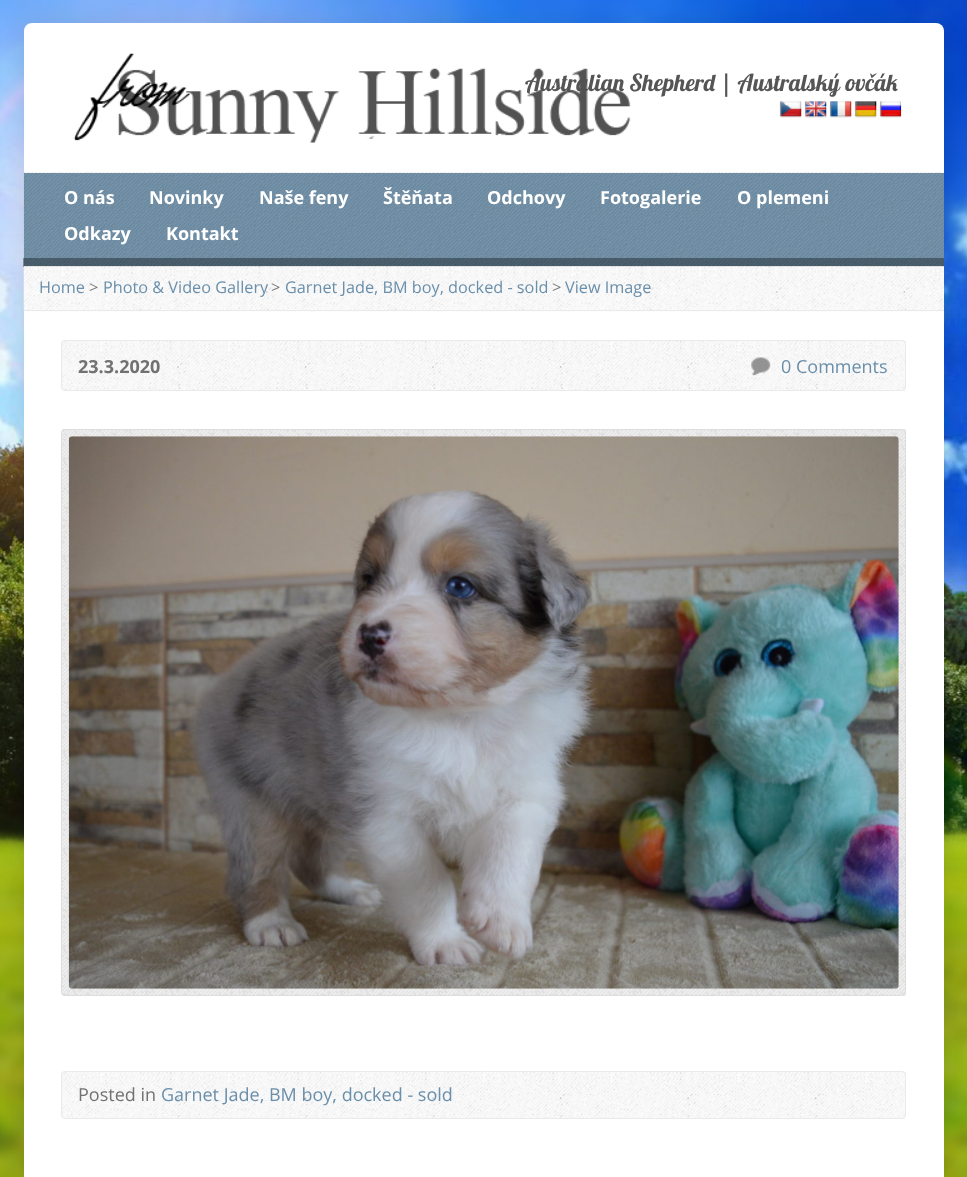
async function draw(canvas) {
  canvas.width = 967
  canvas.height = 1177
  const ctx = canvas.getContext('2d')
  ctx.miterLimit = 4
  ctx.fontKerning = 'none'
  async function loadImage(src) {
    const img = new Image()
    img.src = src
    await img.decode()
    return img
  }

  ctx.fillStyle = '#fff'
  ctx.fillRect(0, 0, 967, 1177)
  ctx.drawImage(await loadImage('image0.png'), 0, 0, 967, 1177)
  ctx.fillStyle = '#0000001f'
  ctx.filter = 'blur(12.5px)'
  ctx.beginPath()
  ctx.roundRect(24, 23, 920, 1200, 8)
  ctx.fill()
  ctx.filter = 'none'
  ctx.fillStyle = '#fff'
  ctx.beginPath()
  ctx.roundRect(24, 23, 920, 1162, 8)
  ctx.fill()
  ctx.font = '23.4px Lobster'
  ctx.fillStyle = '#555'
  ctx.fillText('Australian Shepherd | Australský ovčák', 525, 91)
  ctx.drawImage(await loadImage('image1.png'), 73, 53, 558, 90)
  ctx.drawImage(await loadImage('image2.png'), 779, 101, 23, 17)
  ctx.drawImage(await loadImage('image3.png'), 804, 101, 23, 17)
  ctx.drawImage(await loadImage('image4.png'), 829, 101, 23, 17)
  ctx.drawImage(await loadImage('image5.png'), 854, 101, 23, 17)
  ctx.drawImage(await loadImage('image6.png'), 879, 101, 23, 17)
  ctx.fillStyle = '#6a8fab'
  ctx.fillRect(24, 173, 920, 93)
  ctx.drawImage(await loadImage('image7.png'), 23, 172, 921, 95)
  ctx.font = 'bold 18px Open Sans'
  ctx.fillStyle = '#fff'
  ctx.fillText('O nás', 64, 204)
  ctx.fillText('Novinky', 149, 204)
  ctx.fillText('Naše feny', 259, 204)
  ctx.fillText('Štěňata', 383, 204)
  ctx.fillText('Odchovy', 487, 204)
  ctx.fillText('Fotogalerie', 600, 204)
  ctx.fillText('O plemeni', 737, 204)
  ctx.fillText('Odkazy', 64, 240)
  ctx.fillText('Kontakt', 166, 240)
  ctx.fillStyle = '#00000059'
  ctx.fillRect(23, 258, 921, 9)
  ctx.drawImage(await loadImage('image8.png'), 23, 266, 921, 46)
  ctx.fillStyle = '#eaeaea'
  ctx.fillRect(24, 310, 920, 1)
  ctx.font = '16.25px Open Sans'
  ctx.fillStyle = '#6a8fab'
  ctx.fillText('Home', 39, 293)
  ctx.fillStyle = '#777'
  ctx.fillText('>', 89, 293)
  ctx.fillStyle = '#6a8fab'
  ctx.fillText('Photo & Video Gallery', 103, 293)
  ctx.fillStyle = '#777'
  ctx.fillText('>', 271, 293)
  ctx.fillStyle = '#6a8fab'
  ctx.fillText('Garnet Jade, BM boy, docked - sold', 285, 293)
  ctx.fillStyle = '#777'
  ctx.fillText('>', 552, 293)
  ctx.fillStyle = '#6a8fab'
  ctx.fillText('View Image', 565, 293)
  ctx.drawImage(await loadImage('image9.png'), 61, 340, 845, 51)
  ctx.beginPath()
  ctx.roundRect(61.5, 340.5, 844, 50, 3.5)
  ctx.strokeStyle = '#eaeaea'
  ctx.stroke()
  ctx.font = 'bold 18px Open Sans'
  ctx.fillStyle = '#717171'
  ctx.fillText('23.3.2020', 78, 373)
  ctx.drawImage(await loadImage('image10.png'), 751, 357, 20, 19)
  ctx.font = '18px Open Sans'
  ctx.fillStyle = '#6a8fab'
  ctx.fillText('0 Comments', 781, 373)
  ctx.drawImage(await loadImage('image11.png'), 61, 429, 845, 567)
  ctx.beginPath()
  ctx.roundRect(61.5, 429.5, 844, 566, 3.5)
  ctx.strokeStyle = '#ddd'
  ctx.stroke()
  ctx.drawImage(await loadImage('image12.png'), 68, 436, 831, 553)
  ctx.drawImage(await loadImage('image13.png'), 61, 1071, 845, 48)
  ctx.beginPath()
  ctx.roundRect(61.5, 1071.5, 844, 47, 3.5)
  ctx.strokeStyle = '#eaeaea'
  ctx.stroke()
  ctx.fillStyle = '#717171'
  ctx.fillText('Posted in', 78, 1101)
  ctx.fillStyle = '#6a8fab'
  ctx.fillText('Garnet Jade, BM boy, docked - sold', 161, 1101)
}

draw(document.querySelector('canvas'))
